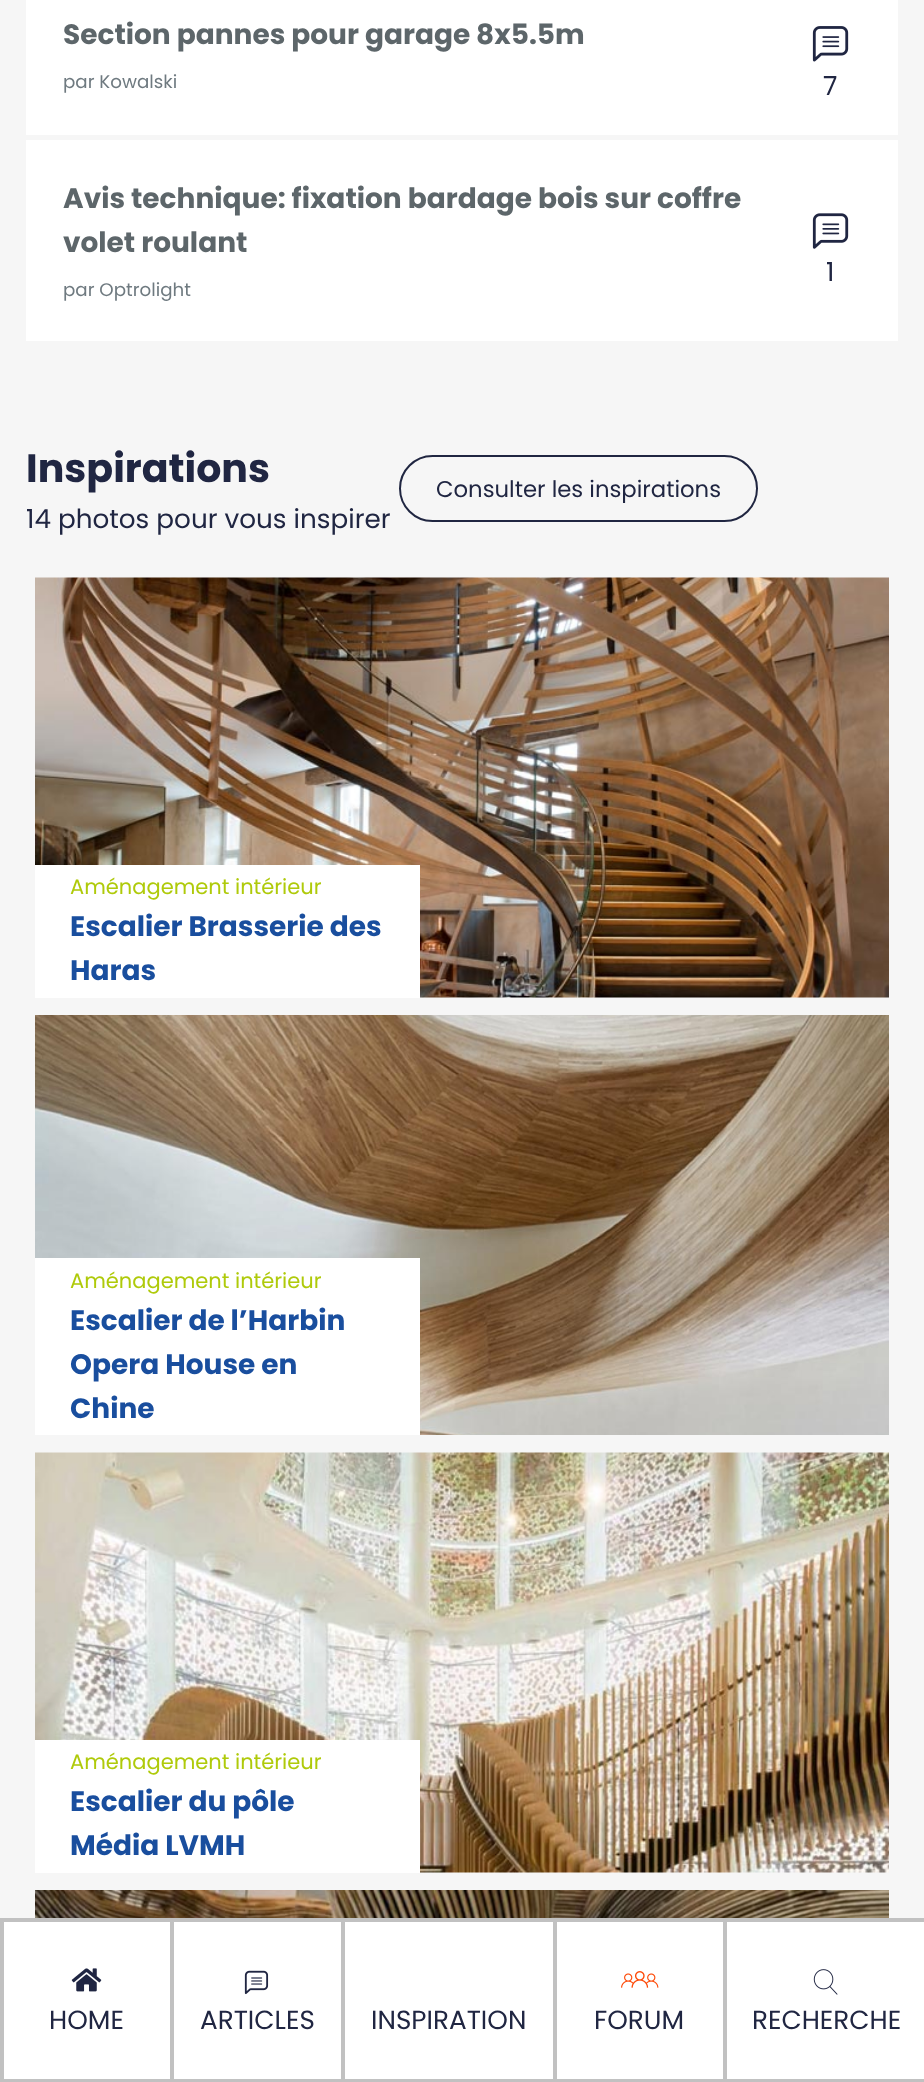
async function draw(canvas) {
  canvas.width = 924
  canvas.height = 2082
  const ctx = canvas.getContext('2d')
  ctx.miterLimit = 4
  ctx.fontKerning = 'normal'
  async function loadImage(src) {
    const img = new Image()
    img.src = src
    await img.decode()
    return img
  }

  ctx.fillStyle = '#f6f6f6'
  ctx.fillRect(0, 0, 924, 2082)
  ctx.fillStyle = '#fff'
  ctx.fillRect(26, 0, 872, 135)
  ctx.font = 'bold 28px Poppins'
  ctx.fillStyle = '#5d666a'
  ctx.fillText('Section pannes pour garage 8x5.5m', 63, 44)
  ctx.font = '18.25px Poppins'
  ctx.fillStyle = '#6f7a80'
  ctx.fillText('par Kowalski', 63, 88)
  ctx.drawImage(await loadImage('image0.png'), 812, 26, 37, 36)
  ctx.font = '26.25px Poppins'
  ctx.fillStyle = '#202642'
  ctx.fillText('7', 823, 95)
  ctx.fillStyle = '#fff'
  ctx.fillRect(26, 140, 872, 201)
  ctx.font = 'bold 28px Poppins'
  ctx.fillStyle = '#5d666a'
  ctx.fillText('Avis technique: fixation bardage bois sur coffre', 63, 208)
  ctx.fillText('volet roulant', 63, 252)
  ctx.font = '18.25px Poppins'
  ctx.fillStyle = '#6f7a80'
  ctx.fillText('par Optrolight', 63, 296)
  ctx.drawImage(await loadImage('image1.png'), 812, 213, 37, 36)
  ctx.font = '26.25px Poppins'
  ctx.fillStyle = '#202642'
  ctx.fillText('1', 826, 281)
  ctx.font = 'bold 39.5px Poppins'
  ctx.fillText('Inspirations', 26, 482)
  ctx.font = '26.25px Poppins'
  ctx.fillText('14 photos pour vous inspirer', 26, 528)
  ctx.beginPath()
  ctx.roundRect(400, 456, 357, 65, 32.5)
  ctx.strokeStyle = '#202641'
  ctx.lineWidth = 2
  ctx.stroke()
  ctx.font = '22.75px Poppins'
  ctx.fillText('Consulter les inspirations', 436, 497)
  ctx.drawImage(await loadImage('image2.png'), 35, 577, 854, 421)
  ctx.fillStyle = '#fff'
  ctx.fillRect(35, 865, 385, 133)
  ctx.font = '21px Poppins'
  ctx.fillStyle = '#afca0a'
  ctx.fillText('Aménagement intérieur', 70, 894)
  ctx.font = 'bold 28px Poppins'
  ctx.fillStyle = '#194e9e'
  ctx.fillText('Escalier Brasserie des', 70, 936)
  ctx.fillText('Haras', 70, 980)
  ctx.drawImage(await loadImage('image3.png'), 35, 1015, 854, 420)
  ctx.fillStyle = '#fff'
  ctx.fillRect(35, 1258, 385, 177)
  ctx.font = '21px Poppins'
  ctx.fillStyle = '#afca0a'
  ctx.fillText('Aménagement intérieur', 70, 1288)
  ctx.font = 'bold 28px Poppins'
  ctx.fillStyle = '#194e9e'
  ctx.fillText('Escalier de l’Harbin', 70, 1330)
  ctx.fillText('Opera House en', 70, 1374)
  ctx.fillText('Chine', 70, 1418)
  ctx.drawImage(await loadImage('image4.png'), 35, 1452, 854, 421)
  ctx.fillStyle = '#fff'
  ctx.fillRect(35, 1740, 385, 133)
  ctx.font = '21px Poppins'
  ctx.fillStyle = '#afca0a'
  ctx.fillText('Aménagement intérieur', 70, 1769)
  ctx.font = 'bold 28px Poppins'
  ctx.fillStyle = '#194e9e'
  ctx.fillText('Escalier du pôle', 70, 1811)
  ctx.fillText('Média LVMH', 70, 1855)
  ctx.drawImage(await loadImage('image5.png'), 35, 1890, 854, 28)
  ctx.fillStyle = '#fff'
  ctx.beginPath()
  ctx.rect(2, 1920, 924, 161)
  ctx.fill()
  ctx.strokeStyle = '#c1c1c1'
  ctx.lineWidth = 4
  ctx.stroke()
  ctx.fillStyle = '#c1c1c1'
  ctx.fillRect(170, 1922, 4, 157)
  ctx.drawImage(await loadImage('image6.png'), 71, 1968, 31, 24)
  ctx.font = '26.25px Poppins'
  ctx.fillStyle = '#202642'
  ctx.fillText('HOME', 49, 2029)
  ctx.fillStyle = '#c1c1c1'
  ctx.fillRect(341, 1922, 4, 157)
  ctx.drawImage(await loadImage('image7.png'), 244, 1970, 25, 25)
  ctx.fillStyle = '#202642'
  ctx.fillText('ARTICLES', 200, 2029)
  ctx.fillStyle = '#c1c1c1'
  ctx.fillRect(553, 1922, 4, 157)
  ctx.fillStyle = '#202642'
  ctx.fillText('INSPIRATION', 371, 2029)
  ctx.fillStyle = '#c1c1c1'
  ctx.fillRect(723, 1922, 4, 157)
  ctx.drawImage(await loadImage('image8.png'), 621, 1971, 38, 17)
  ctx.fillStyle = '#202642'
  ctx.fillText('FORUM', 594, 2029)
  ctx.drawImage(await loadImage('image9.png'), 813, 1969, 25, 26)
  ctx.fillText('RECHERCHE', 752, 2029)
}

draw(document.querySelector('canvas'))
